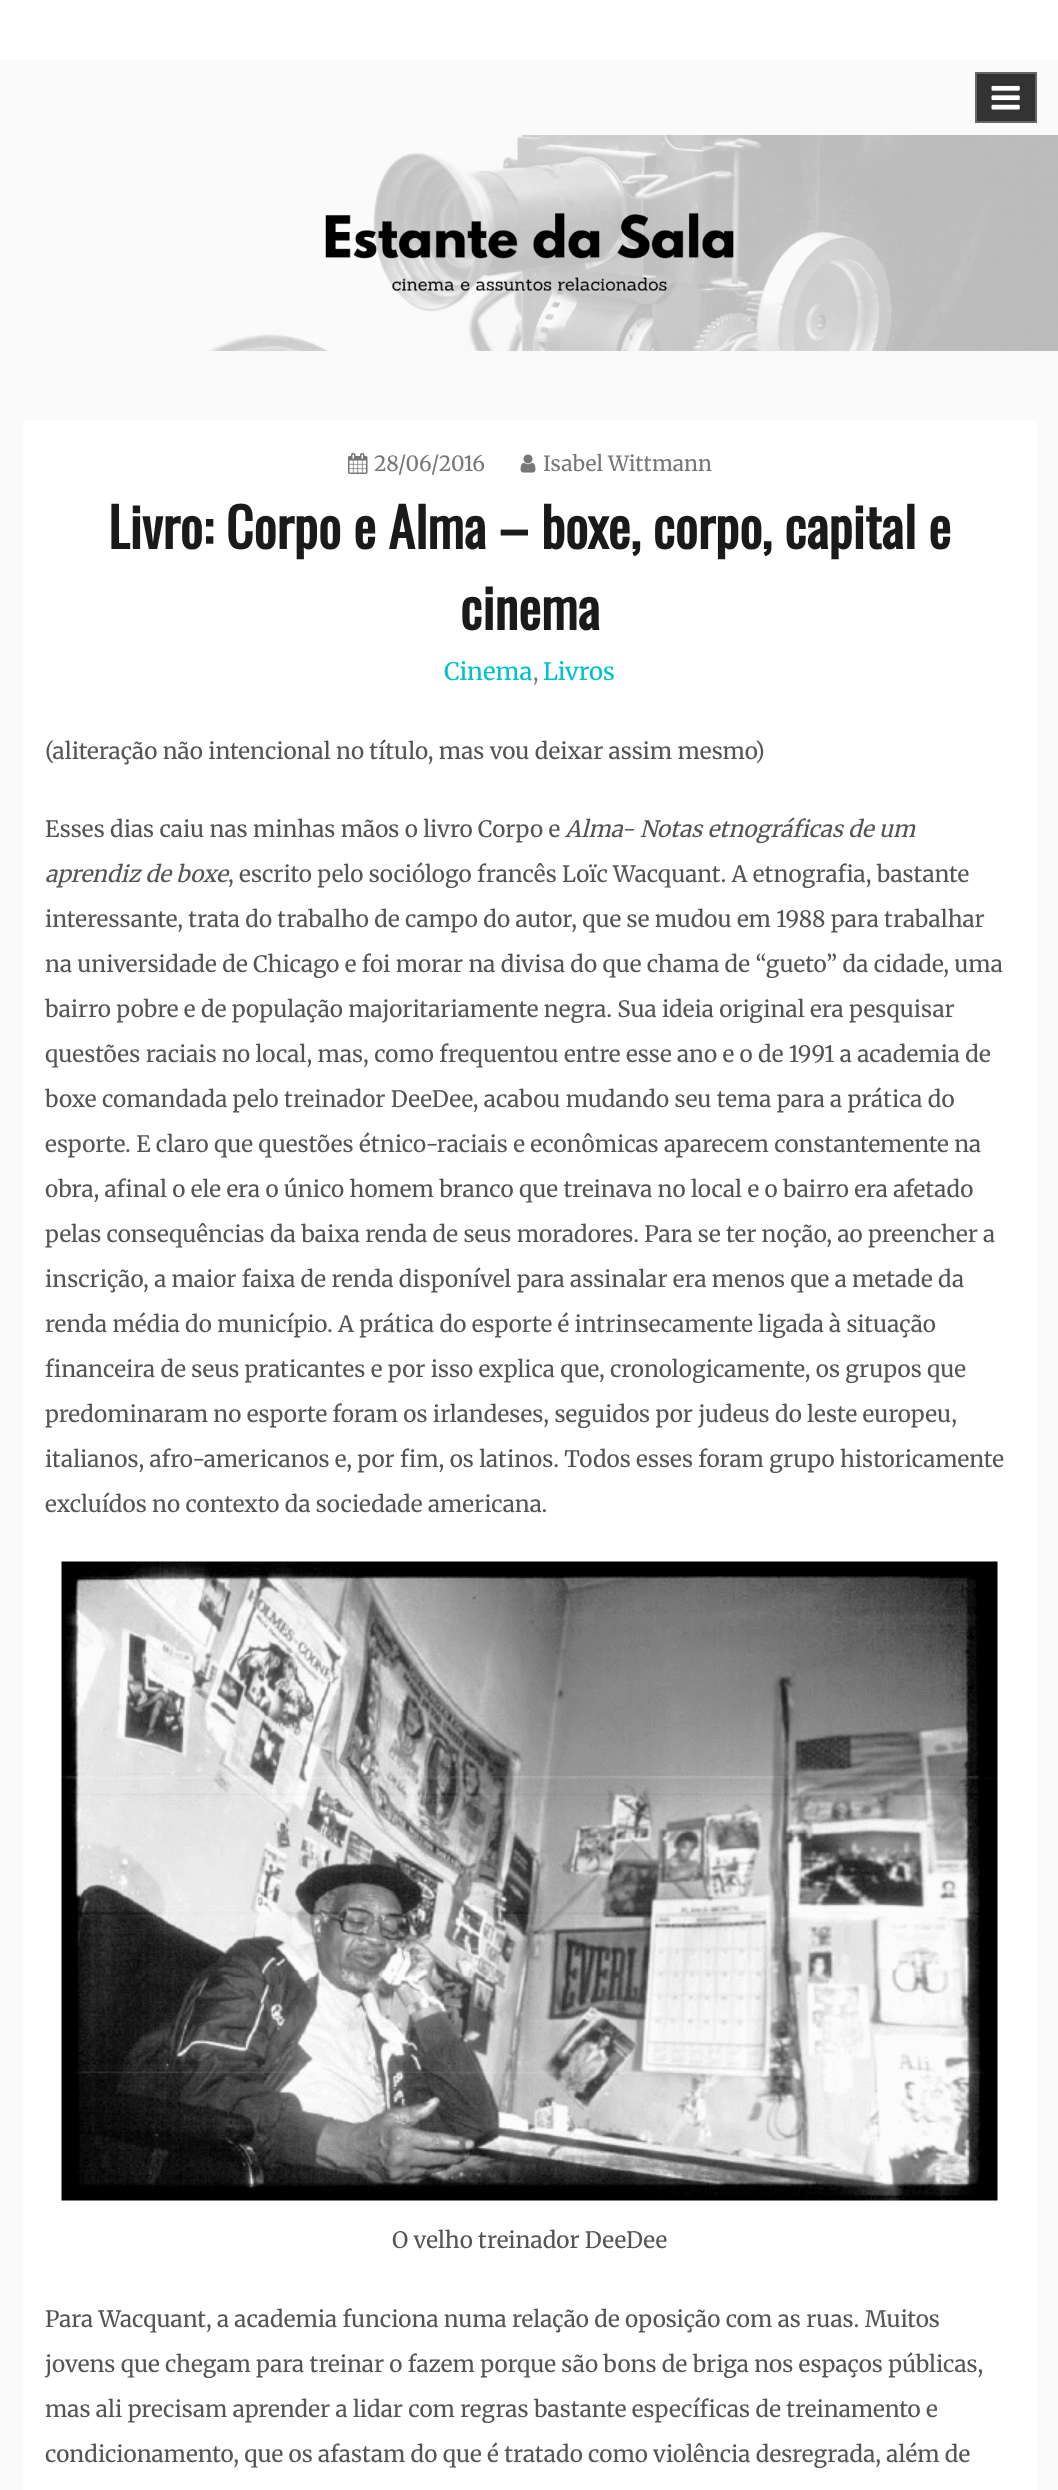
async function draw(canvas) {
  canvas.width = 1058
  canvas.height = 2490
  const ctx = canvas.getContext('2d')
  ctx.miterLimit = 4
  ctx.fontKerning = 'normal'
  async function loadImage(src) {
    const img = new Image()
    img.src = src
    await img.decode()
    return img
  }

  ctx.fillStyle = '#fafafa'
  ctx.fillRect(0, 0, 1058, 2490)
  ctx.fillStyle = '#fff'
  ctx.fillRect(0, 0, 1058, 60)
  ctx.fillStyle = '#333'
  ctx.beginPath()
  ctx.rect(976, 73, 60, 49)
  ctx.fill()
  ctx.strokeStyle = '#666'
  ctx.lineWidth = 2
  ctx.stroke()
  ctx.drawImage(await loadImage('image0.png'), 991, 85, 29, 25)
  ctx.drawImage(await loadImage('image1.png'), 208, 135, 850, 216)
  ctx.fillStyle = '#fff'
  ctx.fillRect(23, 420, 1014, 2070)
  ctx.drawImage(await loadImage('image2.png'), 348, 453, 20, 21)
  ctx.font = '300 21px Merriweather'
  ctx.fillStyle = '#777'
  ctx.fillText('28/06/2016', 374, 471)
  ctx.drawImage(await loadImage('image3.png'), 520, 454, 16, 19)
  ctx.fillText('Isabel Wittmann', 543, 471)
  ctx.font = 'bold 54px Oswald'
  ctx.fillStyle = '#1a1a1a'
  ctx.fillText('Livro: Corpo e Alma – boxe, corpo, capital e', 108, 549)
  ctx.fillText('cinema', 460, 630)
  ctx.font = '300 24px Merriweather'
  ctx.fillStyle = '#00c2cb'
  ctx.fillText('Cinema', 444, 680)
  ctx.font = '300 21px Merriweather'
  ctx.fillStyle = '#777'
  ctx.fillText(',', 533, 680)
  ctx.font = '300 24px Merriweather'
  ctx.fillStyle = '#00c2cb'
  ctx.fillText('Livros', 543, 680)
  ctx.font = '300 22.5px Merriweather'
  ctx.fillStyle = '#555'
  ctx.fillText('(aliteração não intencional no título, mas vou deixar assim mesmo)', 45, 759)
  ctx.fillText('Esses dias caiu nas minhas mãos o livro Corpo e', 45, 837)
  ctx.font = 'italic 300 22.5px Merriweather'
  ctx.fillText('Alma- Notas etnográficas de um', 565, 837)
  ctx.fillText('aprendiz de boxe', 45, 882)
  ctx.font = '300 22.5px Merriweather'
  ctx.fillText(', escrito pelo sociólogo francês Loïc Wacquant. A etnografia, bastante', 228, 882)
  ctx.fillText('interessante, trata do trabalho de campo do autor, que se mudou em 1988 para trabalhar', 45, 927)
  ctx.fillText('na universidade de Chicago e foi morar na divisa do que chama de “gueto” da cidade, uma', 45, 972)
  ctx.fillText('bairro pobre e de população majoritariamente negra. Sua ideia original era pesquisar', 45, 1017)
  ctx.fillText('questões raciais no local, mas, como frequentou entre esse ano e o de 1991 a academia de', 45, 1062)
  ctx.fillText('boxe comandada pelo treinador DeeDee, acabou mudando seu tema para a prática do', 45, 1107)
  ctx.fillText('esporte. E claro que questões étnico-raciais e econômicas aparecem constantemente na', 45, 1152)
  ctx.fillText('obra, afinal o ele era o único homem branco que treinava no local e o bairro era afetado', 45, 1197)
  ctx.fillText('pelas consequências da baixa renda de seus moradores. Para se ter noção, ao preencher a', 45, 1242)
  ctx.fillText('inscrição, a maior faixa de renda disponível para assinalar era menos que a metade da', 45, 1287)
  ctx.fillText('renda média do município. A prática do esporte é intrinsecamente ligada à situação', 45, 1332)
  ctx.fillText('financeira de seus praticantes e por isso explica que, cronologicamente, os grupos que', 45, 1377)
  ctx.fillText('predominaram no esporte foram os irlandeses, seguidos por judeus do leste europeu,', 45, 1422)
  ctx.fillText('italianos, afro-americanos e, por fim, os latinos. Todos esses foram grupo historicamente', 45, 1467)
  ctx.fillText('excluídos no contexto da sociedade americana.', 45, 1512)
  ctx.drawImage(await loadImage('image4.png'), 61, 1561, 937, 640)
  ctx.fillText('O velho treinador DeeDee', 392, 2248)
  ctx.fillText('Para Wacquant, a academia funciona numa relação de oposição com as ruas. Muitos', 45, 2327)
  ctx.fillText('jovens que chegam para treinar o fazem porque são bons de briga nos espaços públicas,', 45, 2372)
  ctx.fillText('mas ali precisam aprender a lidar com regras bastante específicas de treinamento e', 45, 2417)
  ctx.fillText('condicionamento, que os afastam do que é tratado como violência desregrada, além de', 45, 2462)
}

draw(document.querySelector('canvas'))
